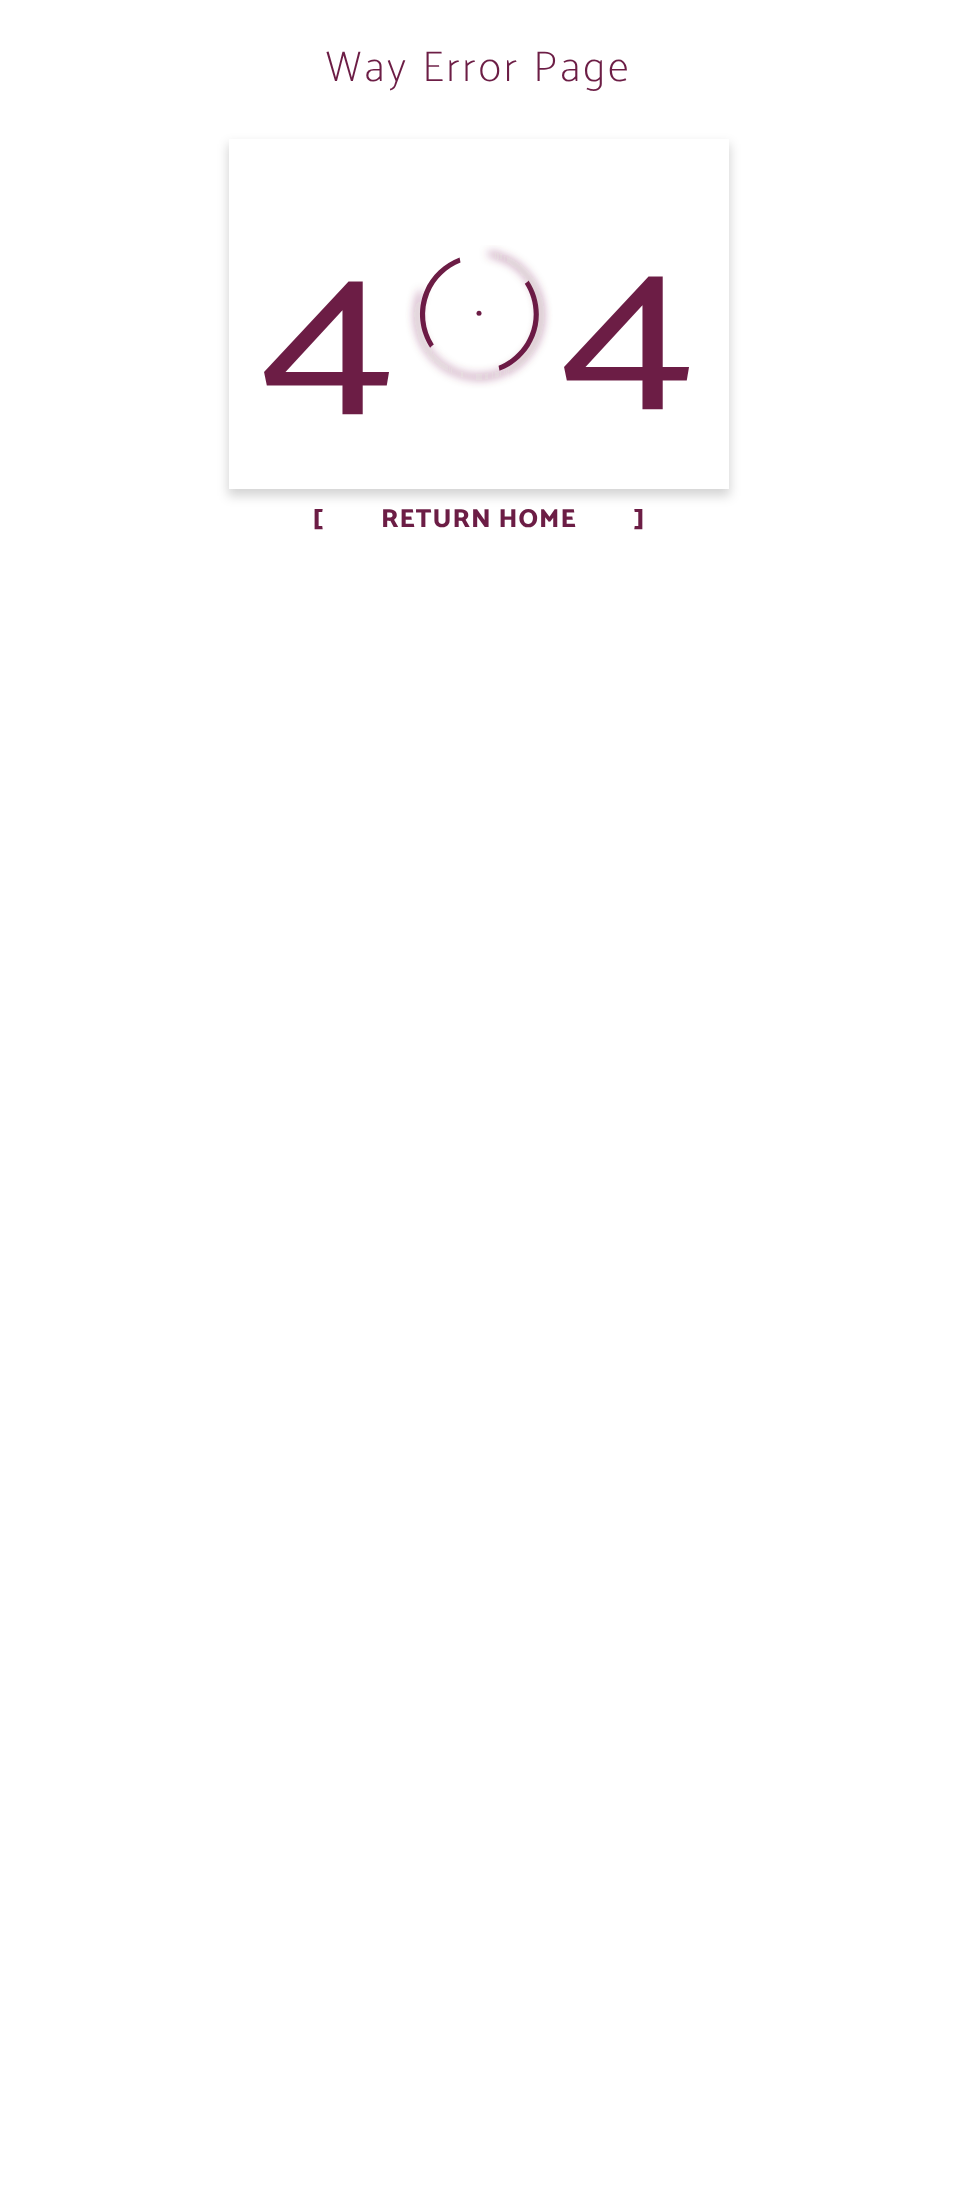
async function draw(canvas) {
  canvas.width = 958
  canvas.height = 2209
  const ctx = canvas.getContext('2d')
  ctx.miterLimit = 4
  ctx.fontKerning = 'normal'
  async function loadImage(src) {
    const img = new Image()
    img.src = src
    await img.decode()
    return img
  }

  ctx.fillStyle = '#fff'
  ctx.fillRect(0, 0, 958, 2209)
  ctx.letterSpacing = '3px'
  ctx.font = '100 43px Catamaran'
  ctx.fillStyle = '#6c1d45'
  ctx.fillText('Way Error Page', 326, 81)
  ctx.save()
  ctx.beginPath()
  ctx.moveTo(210, 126)
  ctx.lineTo(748, 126)
  ctx.lineTo(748, 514)
  ctx.lineTo(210, 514)
  ctx.closePath()
  ctx.moveTo(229, 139)
  ctx.lineTo(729, 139)
  ctx.lineTo(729, 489)
  ctx.lineTo(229, 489)
  ctx.closePath()
  ctx.clip('evenodd')
  ctx.fillStyle = '#0000002b'
  ctx.filter = 'blur(5.5px)'
  ctx.beginPath()
  ctx.rect(228, 144, 502, 352)
  ctx.fill()
  ctx.filter = 'none'
  ctx.restore()
  ctx.drawImage(await loadImage('image0.png'), 264, 245, 425, 170)
  ctx.letterSpacing = '1px'
  ctx.font = '100 26px "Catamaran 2"'
  ctx.fillText('[', 312, 527)
  ctx.fillText('RETURN HOME', 381, 527)
  ctx.fillText(']', 634, 527)
}

draw(document.querySelector('canvas'))
